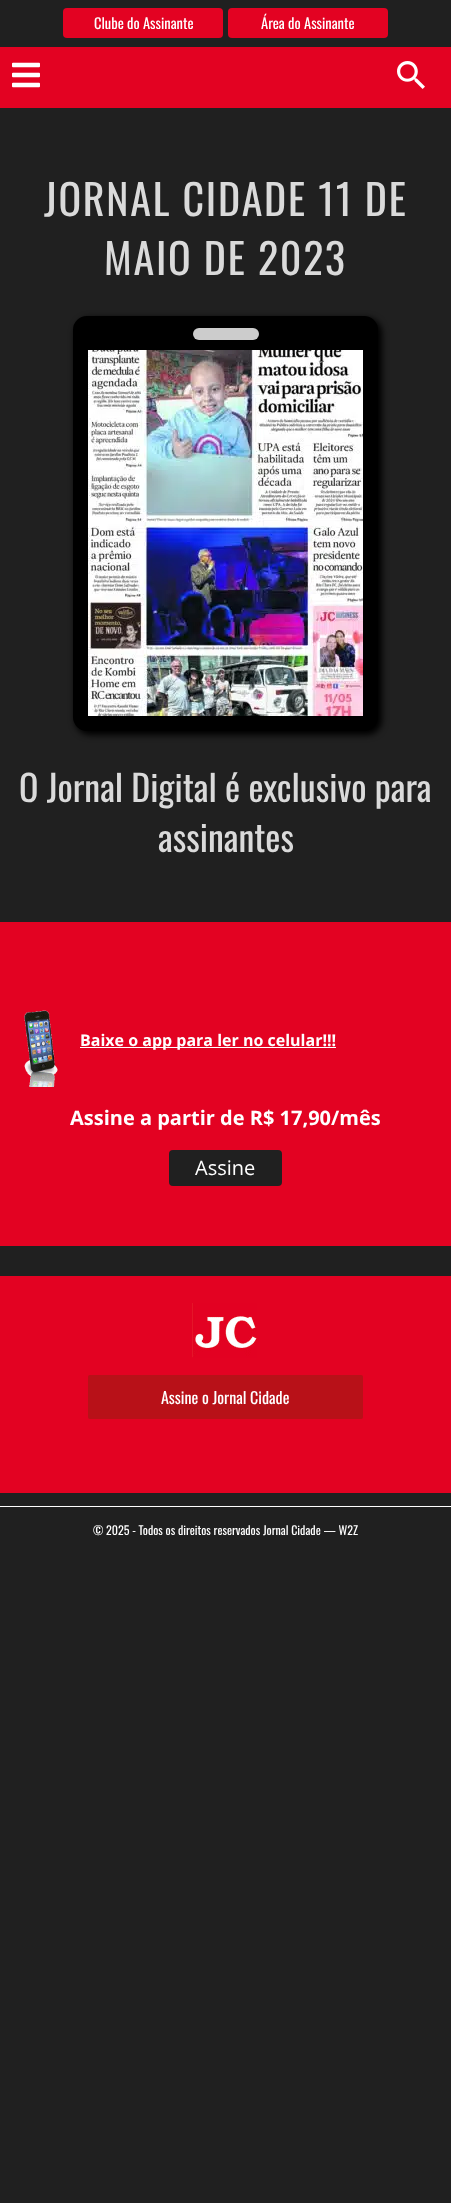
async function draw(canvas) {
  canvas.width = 451
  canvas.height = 2203
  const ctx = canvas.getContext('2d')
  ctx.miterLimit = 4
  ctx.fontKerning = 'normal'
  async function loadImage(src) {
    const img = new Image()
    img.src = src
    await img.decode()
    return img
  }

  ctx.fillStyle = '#202020'
  ctx.fillRect(0, 0, 451, 2203)
  ctx.fillStyle = '#e30222'
  ctx.beginPath()
  ctx.roundRect(63, 8, 160, 30, 4)
  ctx.fill()
  ctx.font = '14.5px Oswald'
  ctx.fillStyle = '#fff'
  ctx.fillText('Clube do Assinante', 94, 29)
  ctx.fillStyle = '#e30222'
  ctx.beginPath()
  ctx.roundRect(228, 8, 160, 30, 4)
  ctx.fill()
  ctx.fillStyle = '#fff'
  ctx.fillText('Área do Assinante', 261, 29)
  ctx.fillStyle = '#e30222'
  ctx.fillRect(0, 47, 451, 61)
  ctx.drawImage(await loadImage('image0.png'), 12, 62, 28, 26)
  ctx.drawImage(await loadImage('image1.png'), 397, 61, 28, 28)
  ctx.letterSpacing = '1.75px'
  ctx.font = '42px Oswald'
  ctx.fillStyle = '#dadada'
  ctx.fillText('JORNAL CIDADE 11 DE', 44, 216)
  ctx.fillText('MAIO DE 2023', 104, 275)
  ctx.fillStyle = '#000'
  ctx.filter = 'blur(3px)'
  ctx.beginPath()
  ctx.roundRect(75, 318, 307, 417, 15)
  ctx.fill()
  ctx.filter = 'none'
  ctx.beginPath()
  ctx.roundRect(74.5, 317.5, 302, 412, 12.5)
  ctx.fill()
  ctx.strokeStyle = '#000'
  ctx.lineWidth = 3
  ctx.stroke()
  ctx.fillStyle = '#ccc'
  ctx.beginPath()
  ctx.roundRect(193, 328, 66, 12, 6)
  ctx.fill()
  ctx.drawImage(await loadImage('image2.png'), 88, 350, 275, 366)
  ctx.letterSpacing = '0px'
  ctx.font = '36px Oswald'
  ctx.fillStyle = '#dadada'
  ctx.fillText('O Jornal Digital é exclusivo para', 19, 802)
  ctx.fillText('assinantes', 158, 852)
  ctx.fillStyle = '#e30222'
  ctx.fillRect(0, 922, 451, 324)
  ctx.drawImage(await loadImage('image3.png'), 24, 1010, 34, 77)
  ctx.fillStyle = '#fff'
  ctx.fillRect(80, 1047, 256, 1)
  ctx.font = 'bold 16px Open Sans'
  ctx.fillText('Baixe o app para ler no celular!!!', 80, 1046)
  ctx.font = 'bold 20px Open Sans'
  ctx.fillText('Assine a partir de R$ 17,90/mês', 70, 1125)
  ctx.fillStyle = '#202020'
  ctx.beginPath()
  ctx.roundRect(169, 1150, 113, 36, 4)
  ctx.fill()
  ctx.font = '20px Open Sans'
  ctx.fillStyle = '#fff'
  ctx.fillText('Assine', 195, 1175)
  ctx.fillStyle = '#e30222'
  ctx.fillRect(0, 1276, 451, 217)
  ctx.drawImage(await loadImage('image4.png'), 192, 1303, 65, 55)
  ctx.fillStyle = '#b81118'
  ctx.beginPath()
  ctx.roundRect(88, 1375, 275, 44, 2)
  ctx.fill()
  ctx.font = '16px Oswald'
  ctx.fillStyle = '#fff'
  ctx.fillText('Assine o Jornal Cidade', 161, 1404)
  ctx.fillRect(0, 1506, 451, 1)
  ctx.font = '12px Oswald'
  ctx.fillText('© 2025 - Todos os direitos reservados Jornal Cidade — W2Z', 93, 1535)
}

draw(document.querySelector('canvas'))
